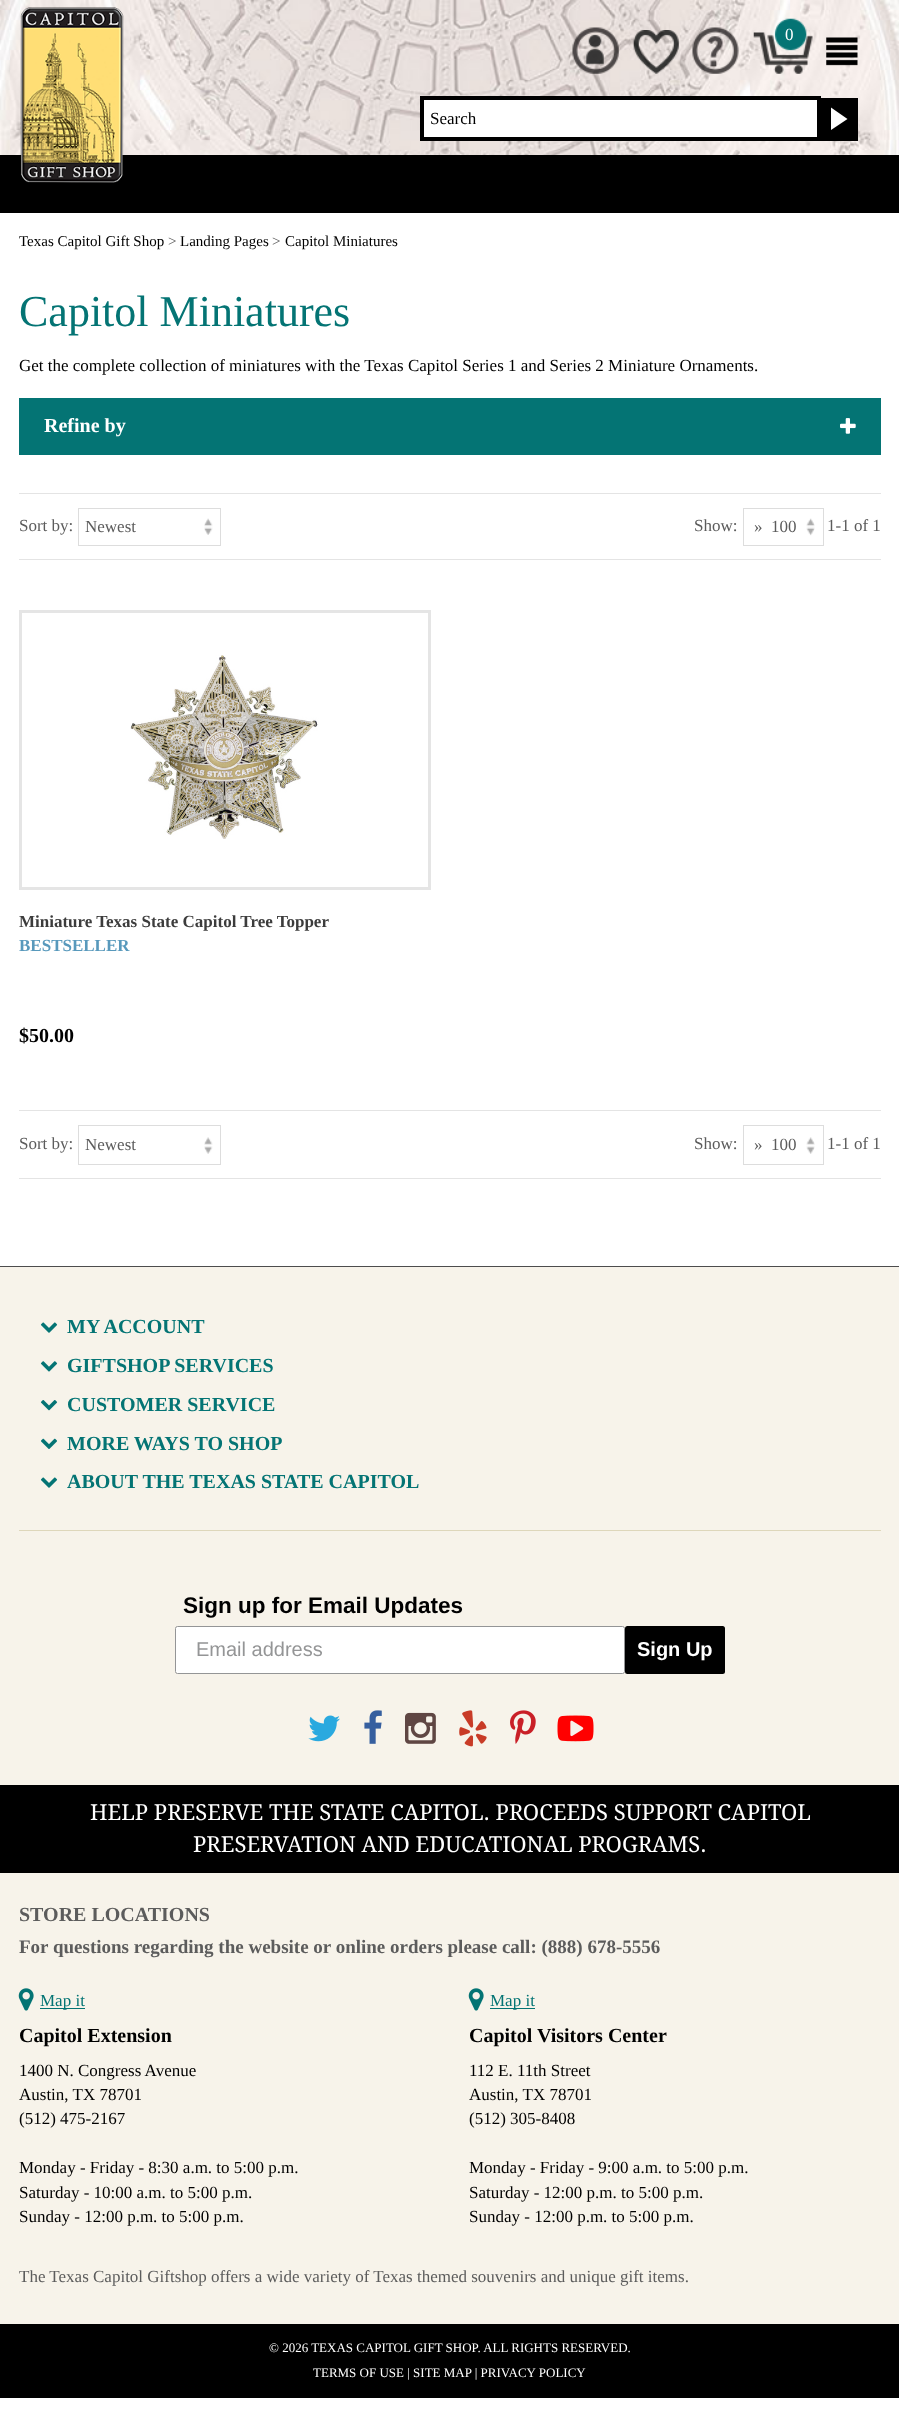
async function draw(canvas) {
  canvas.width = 899
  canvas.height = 2432
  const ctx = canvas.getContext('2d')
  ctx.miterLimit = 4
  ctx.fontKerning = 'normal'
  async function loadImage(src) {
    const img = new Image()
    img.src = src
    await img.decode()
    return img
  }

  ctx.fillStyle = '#fff'
  ctx.fillRect(0, 0, 899, 2432)
  ctx.drawImage(await loadImage('image0.png'), 0, 0, 899, 155)
  ctx.fillStyle = '#000'
  ctx.fillRect(0, 155, 899, 58)
  ctx.drawImage(await loadImage('image1.png'), 20, 7, 104, 176)
  ctx.drawImage(await loadImage('image2.png'), 572, 27, 47, 47)
  ctx.drawImage(await loadImage('image3.png'), 633, 30, 46, 44)
  ctx.drawImage(await loadImage('image4.png'), 692, 27, 47, 47)
  ctx.drawImage(await loadImage('image5.png'), 753, 18, 60, 56)
  ctx.font = '17px Liberation Serif'
  ctx.fillStyle = '#fff'
  ctx.fillText('0', 785, 40)
  ctx.drawImage(await loadImage('image6.png'), 826, 37, 32, 29)
  ctx.beginPath()
  ctx.rect(422, 98, 397, 41)
  ctx.fill()
  ctx.strokeStyle = '#000'
  ctx.lineWidth = 4
  ctx.stroke()
  ctx.fillStyle = '#000'
  ctx.fillText('Search', 430, 124)
  ctx.fillRect(821, 98, 37, 43)
  ctx.fillStyle = '#fff'
  ctx.beginPath()
  ctx.moveTo(831, 130)
  ctx.lineTo(831, 107.5)
  ctx.lineTo(847.5, 119)
  ctx.closePath()
  ctx.fill()
  ctx.font = '15px Liberation Serif'
  ctx.fillStyle = '#000'
  ctx.fillText('Texas Capitol Gift Shop', 19, 246)
  ctx.fillStyle = '#5c5c5c'
  ctx.fillText('>', 168, 246)
  ctx.fillStyle = '#000'
  ctx.fillText('Landing Pages', 180, 246)
  ctx.fillStyle = '#5c5c5c'
  ctx.fillText('>', 272, 246)
  ctx.fillStyle = '#000'
  ctx.fillText('Capitol Miniatures', 285, 246)
  ctx.font = '44px Liberation Serif'
  ctx.fillStyle = '#047474'
  ctx.fillText('Capitol Miniatures', 19, 326)
  ctx.font = '17px Liberation Serif'
  ctx.fillStyle = '#000'
  ctx.fillText('Get the complete collection of miniatures with the Texas Capitol Series 1 and Series 2 Miniature Ornaments.', 19, 371)
  ctx.fillStyle = '#047474'
  ctx.fillRect(19, 398, 862, 57)
  ctx.font = 'bold 20px Liberation Serif'
  ctx.fillStyle = '#fff'
  ctx.fillText('Refine by', 44, 432)
  ctx.drawImage(await loadImage('image7.png'), 840, 418, 16, 16)
  ctx.fillStyle = '#e4e4e4'
  ctx.fillRect(19, 493, 862, 1)
  ctx.fillRect(19, 559, 862, 1)
  ctx.font = '17px Liberation Serif'
  ctx.fillStyle = '#5c5c5c'
  ctx.fillText('Sort by:', 19, 531)
  ctx.drawImage(await loadImage('image8.png'), 204, 518, 9, 17)
  ctx.strokeStyle = '#ddd'
  ctx.lineWidth = 1
  ctx.strokeRect(78.5, 508.5, 142, 37)
  ctx.fillText('Newest', 85, 532)
  ctx.fillText('Show:', 694, 531)
  ctx.drawImage(await loadImage('image9.png'), 806, 518, 9, 18)
  ctx.strokeRect(743.5, 508.5, 80, 37)
  ctx.fillText('»  100', 754, 532)
  ctx.fillText('1-1 of 1', 827, 531)
  ctx.strokeStyle = '#e5e5e5'
  ctx.lineWidth = 3
  ctx.strokeRect(20.5, 611.5, 409, 277)
  ctx.drawImage(await loadImage('image10.png'), 130, 655, 189, 184)
  ctx.font = 'bold 17px Liberation Serif'
  ctx.fillStyle = '#3c3c3c'
  ctx.fillText('Miniature Texas State Capitol Tree Topper', 19, 927)
  ctx.fillStyle = '#5899bc'
  ctx.fillText('BESTSELLER', 19, 951)
  ctx.font = 'bold 20px Liberation Serif'
  ctx.fillStyle = '#000'
  ctx.fillText('$50.00', 19, 1042)
  ctx.fillStyle = '#e4e4e4'
  ctx.fillRect(19, 1110, 862, 1)
  ctx.fillRect(19, 1178, 862, 1)
  ctx.font = '17px Liberation Serif'
  ctx.fillStyle = '#5c5c5c'
  ctx.fillText('Sort by:', 19, 1149)
  ctx.drawImage(await loadImage('image11.png'), 204, 1137, 9, 17)
  ctx.strokeStyle = '#ddd'
  ctx.lineWidth = 1
  ctx.strokeRect(78.5, 1125.5, 142, 39)
  ctx.fillText('Newest', 85, 1150)
  ctx.fillText('Show:', 694, 1149)
  ctx.drawImage(await loadImage('image12.png'), 806, 1137, 9, 17)
  ctx.strokeRect(743.5, 1125.5, 80, 39)
  ctx.fillText('»  100', 754, 1150)
  ctx.fillText('1-1 of 1', 827, 1149)
  ctx.fillStyle = '#f7f3ea'
  ctx.fillRect(0, 1267, 899, 1057)
  ctx.fillStyle = '#4d4d4d'
  ctx.fillRect(0, 1266, 899, 1)
  ctx.drawImage(await loadImage('image13.png'), 40, 1322, 18, 11)
  ctx.font = 'bold 20px Liberation Serif'
  ctx.fillStyle = '#047474'
  ctx.fillText('MY ACCOUNT', 67, 1333)
  ctx.drawImage(await loadImage('image14.png'), 40, 1361, 18, 11)
  ctx.fillText('GIFTSHOP SERVICES', 67, 1372)
  ctx.drawImage(await loadImage('image15.png'), 40, 1400, 18, 11)
  ctx.fillText('CUSTOMER SERVICE', 67, 1411)
  ctx.drawImage(await loadImage('image16.png'), 41, 1438, 16, 11)
  ctx.fillText('MORE WAYS TO SHOP', 67, 1450)
  ctx.drawImage(await loadImage('image13.png'), 40, 1477, 18, 11)
  ctx.fillText('ABOUT THE TEXAS STATE CAPITOL', 67, 1488)
  ctx.fillStyle = '#ded7bb'
  ctx.fillRect(19, 1530, 862, 1)
  ctx.font = 'bold 22.5px Liberation Sans'
  ctx.fillStyle = '#000'
  ctx.fillText('Sign up for Email Updates', 183, 1613)
  ctx.fillStyle = '#fff'
  ctx.beginPath()
  ctx.roundRect(175.5, 1626.5, 449, 47, 2)
  ctx.fill()
  ctx.strokeStyle = '#949596'
  ctx.stroke()
  ctx.font = '20px Liberation Sans'
  ctx.fillStyle = '#949596'
  ctx.fillText('Email address', 196, 1656)
  ctx.fillStyle = '#000'
  ctx.beginPath()
  ctx.roundRect(625, 1626, 100, 48, 2.5)
  ctx.fill()
  ctx.font = 'bold 20px Liberation Sans'
  ctx.fillStyle = '#fff'
  ctx.fillText('Sign Up', 637, 1656)
  ctx.drawImage(await loadImage('image17.png'), 308, 1715, 32, 27)
  ctx.drawImage(await loadImage('image18.png'), 364, 1710, 18, 34)
  ctx.drawImage(await loadImage('image19.png'), 405, 1712, 31, 32)
  ctx.drawImage(await loadImage('image20.png'), 459, 1710, 28, 37)
  ctx.drawImage(await loadImage('image21.png'), 510, 1710, 26, 34)
  ctx.drawImage(await loadImage('image22.png'), 557, 1715, 37, 27)
  ctx.fillStyle = '#000'
  ctx.fillRect(0, 1785, 899, 88)
  ctx.font = '22px Droid Serif'
  ctx.fillStyle = '#fff'
  ctx.fillText('HELP PRESERVE THE STATE CAPITOL. PROCEEDS SUPPORT CAPITOL', 90, 1820)
  ctx.fillText('PRESERVATION AND EDUCATIONAL PROGRAMS.', 193, 1852)
  ctx.font = 'bold 20px Liberation Serif'
  ctx.fillStyle = '#5c5c5c'
  ctx.fillText('STORE LOCATIONS', 19, 1921)
  ctx.font = 'bold 19px Liberation Serif'
  ctx.fillText('For questions regarding the website or online orders please call: (888) 678-5556', 19, 1953)
  ctx.drawImage(await loadImage('image23.png'), 18, 1988, 16, 23)
  ctx.fillStyle = '#047474'
  ctx.fillRect(40, 2008, 45, 1)
  ctx.font = '17px Liberation Serif'
  ctx.fillText('Map it', 40, 2006)
  ctx.font = 'bold 20px Liberation Serif'
  ctx.fillStyle = '#000'
  ctx.fillText('Capitol Extension', 19, 2042)
  ctx.font = '17px Liberation Serif'
  ctx.fillText('1400 N. Congress Avenue', 19, 2076)
  ctx.fillText('Austin, TX 78701', 19, 2100)
  ctx.fillText('(512) 475-2167', 19, 2124)
  ctx.fillText('Monday - Friday - 8:30 a.m. to 5:00 p.m.', 19, 2173)
  ctx.fillText('Saturday - 10:00 a.m. to 5:00 p.m.', 19, 2198)
  ctx.fillText('Sunday - 12:00 p.m. to 5:00 p.m.', 19, 2222)
  ctx.drawImage(await loadImage('image23.png'), 468, 1988, 16, 23)
  ctx.fillStyle = '#047474'
  ctx.fillRect(490, 2008, 45, 1)
  ctx.fillText('Map it', 490, 2006)
  ctx.font = 'bold 20px Liberation Serif'
  ctx.fillStyle = '#000'
  ctx.fillText('Capitol Visitors Center', 469, 2042)
  ctx.font = '17px Liberation Serif'
  ctx.fillText('112 E. 11th Street', 469, 2076)
  ctx.fillText('Austin, TX 78701', 469, 2100)
  ctx.fillText('(512) 305-8408', 469, 2124)
  ctx.fillText('Monday - Friday - 9:00 a.m. to 5:00 p.m.', 469, 2173)
  ctx.fillText('Saturday - 12:00 p.m. to 5:00 p.m.', 469, 2198)
  ctx.fillText('Sunday - 12:00 p.m. to 5:00 p.m.', 469, 2222)
  ctx.fillStyle = '#5c5c5c'
  ctx.fillText('The Texas Capitol Giftshop offers a wide variety of Texas themed souvenirs and unique gift items.', 19, 2282)
  ctx.fillStyle = '#000'
  ctx.fillRect(0, 2324, 899, 74)
  ctx.font = '13px Liberation Serif'
  ctx.fillStyle = '#fff'
  ctx.fillText('© 2026 TEXAS CAPITOL GIFT SHOP. ALL RIGHTS RESERVED.', 269, 2352)
  ctx.fillText('TERMS OF USE | SITE MAP | PRIVACY POLICY', 313, 2377)
}

draw(document.querySelector('canvas'))
